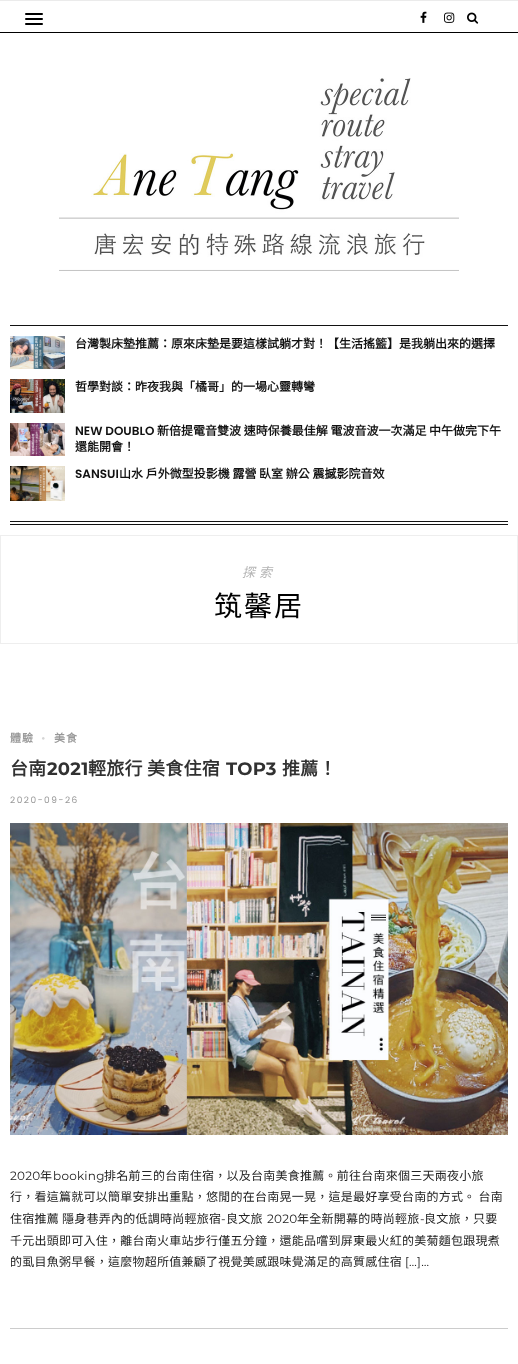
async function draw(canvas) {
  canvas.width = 518
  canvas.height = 1364
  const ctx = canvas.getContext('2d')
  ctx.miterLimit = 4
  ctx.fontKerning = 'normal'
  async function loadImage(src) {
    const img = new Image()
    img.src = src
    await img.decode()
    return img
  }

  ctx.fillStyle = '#fff'
  ctx.fillRect(0, 0, 518, 1364)
  ctx.fillStyle = '#ebebeb'
  ctx.fillRect(0, 0, 518, 1)
  ctx.fillStyle = '#000'
  ctx.fillRect(0, 32, 518, 1)
  ctx.beginPath()
  ctx.roundRect(25, 13, 18, 2, 1)
  ctx.fill()
  ctx.beginPath()
  ctx.roundRect(25, 18, 18, 2, 1)
  ctx.fill()
  ctx.beginPath()
  ctx.roundRect(25, 23, 18, 2, 1)
  ctx.fill()
  ctx.drawImage(await loadImage('image0.png'), 420, 11, 7, 12)
  ctx.drawImage(await loadImage('image1.png'), 444, 12, 11, 11)
  ctx.drawImage(await loadImage('image2.png'), 467, 12, 12, 12)
  ctx.drawImage(await loadImage('image3.png'), 59, 78, 400, 193)
  ctx.fillStyle = '#121212'
  ctx.fillRect(10, 325, 498, 1)
  ctx.fillRect(10, 521, 498, 1)
  ctx.fillRect(10, 524, 498, 1)
  ctx.drawImage(await loadImage('image4.png'), 10, 336, 55, 33)
  ctx.font = 'bold 12px Noto Sans CJK TC'
  ctx.fillText('台灣製床墊推薦：原來床墊是要這樣試躺才對！【生活搖籃】是我躺出來的選擇', 75, 348)
  ctx.drawImage(await loadImage('image5.png'), 10, 379, 55, 34)
  ctx.fillText('哲學對談：昨夜我與「橘哥」的一場心靈轉彎', 75, 391)
  ctx.drawImage(await loadImage('image6.png'), 10, 423, 55, 33)
  ctx.font = '600 12px Poppins'
  ctx.fillText('NEW DOUBLO', 75, 435)
  ctx.font = 'bold 12px Noto Sans CJK TC'
  ctx.fillText('新倍提電音雙波 速時保養最佳解 電波音波一次滿足 中午做完下午', 157, 435)
  ctx.fillText('還能開會！', 75, 451)
  ctx.drawImage(await loadImage('image7.png'), 10, 466, 55, 35)
  ctx.font = '600 12px Poppins'
  ctx.fillText('SANSUI', 75, 478)
  ctx.font = 'bold 12px Noto Sans CJK TC'
  ctx.fillText('山水 戶外微型投影機 露營 臥室 辦公 震撼影院音效', 119, 478)
  ctx.strokeStyle = '#eee'
  ctx.strokeRect(0.5, 535.5, 517, 108)
  ctx.letterSpacing = '4px'
  ctx.font = 'italic 13px Noto Sans CJK TC'
  ctx.fillStyle = '#b5b5b5'
  ctx.fillText('探索', 242, 577)
  ctx.letterSpacing = '2px'
  ctx.font = '28px Noto Sans CJK TC'
  ctx.fillStyle = '#000'
  ctx.fillText('筑馨居', 214, 616)
  ctx.fillStyle = '#ccc'
  ctx.fillRect(10, 1328, 498, 1)
  ctx.letterSpacing = '1px'
  ctx.font = 'bold 11px Noto Sans CJK TC'
  ctx.fillStyle = '#999'
  ctx.fillText('體驗', 10, 742)
  ctx.letterSpacing = '0px'
  ctx.font = '11px Poppins'
  ctx.fillStyle = '#d5d5d5'
  ctx.fillText('•', 41, 742)
  ctx.letterSpacing = '1px'
  ctx.font = 'bold 11px Noto Sans CJK TC'
  ctx.fillStyle = '#999'
  ctx.fillText('美食', 54, 742)
  ctx.letterSpacing = '0.25px'
  ctx.font = 'bold 18px Noto Sans CJK TC'
  ctx.fillStyle = '#313131'
  ctx.fillText('台南', 10, 775)
  ctx.font = 'bold 18px Montserrat'
  ctx.fillText('2021', 47, 775)
  ctx.font = 'bold 18px Noto Sans CJK TC'
  ctx.fillText('輕旅行 美食住宿', 88, 775)
  ctx.font = 'bold 18px Montserrat'
  ctx.fillText('TOP3', 226, 775)
  ctx.font = 'bold 18px Noto Sans CJK TC'
  ctx.fillText('推薦！', 282, 775)
  ctx.letterSpacing = '1.5px'
  ctx.font = '9px Poppins'
  ctx.fillStyle = '#999'
  ctx.fillText('2020-09-26', 10, 803)
  ctx.drawImage(await loadImage('image8.png'), 10, 823, 498, 312)
  ctx.letterSpacing = '0.25px'
  ctx.font = '12px Montserrat'
  ctx.fillStyle = '#222'
  ctx.fillText('2020', 10, 1180)
  ctx.font = '12px Noto Sans CJK TC'
  ctx.fillText('年', 40, 1180)
  ctx.font = '12px Montserrat'
  ctx.fillText('booking', 53, 1180)
  ctx.font = '12px Noto Sans CJK TC'
  ctx.fillText('排名前三的台南住宿，以及台南美食推薦。前往台南來個三天兩夜小旅', 104, 1180)
  ctx.fillText('行，看這篇就可以簡單安排出重點，悠閒的在台南晃一晃，這是最好享受台南的方式。 台南', 10, 1201)
  ctx.fillText('住宿推薦 隱身巷弄內的低調時尚輕旅宿', 10, 1223)
  ctx.font = '12px Montserrat'
  ctx.fillText('-', 221, 1223)
  ctx.font = '12px Noto Sans CJK TC'
  ctx.fillText('良文旅', 226, 1223)
  ctx.font = '12px Montserrat'
  ctx.fillText('2020', 267, 1223)
  ctx.font = '12px Noto Sans CJK TC'
  ctx.fillText('年全新開幕的時尚輕旅', 297, 1223)
  ctx.font = '12px Montserrat'
  ctx.fillText('-', 420, 1223)
  ctx.font = '12px Noto Sans CJK TC'
  ctx.fillText('良文旅，只要', 424, 1223)
  ctx.fillText('千元出頭即可入住，離台南火車站步行僅五分鐘，還能品嚐到屏東最火紅的美菊麵包跟現煮', 10, 1245)
  ctx.fillText('的虱目魚粥早餐，這麼物超所值兼顧了視覺美感跟味覺滿足的高質感住宿', 10, 1266)
  ctx.font = '12px Montserrat'
  ctx.fillText('[…]…', 405, 1266)
}

draw(document.querySelector('canvas'))
